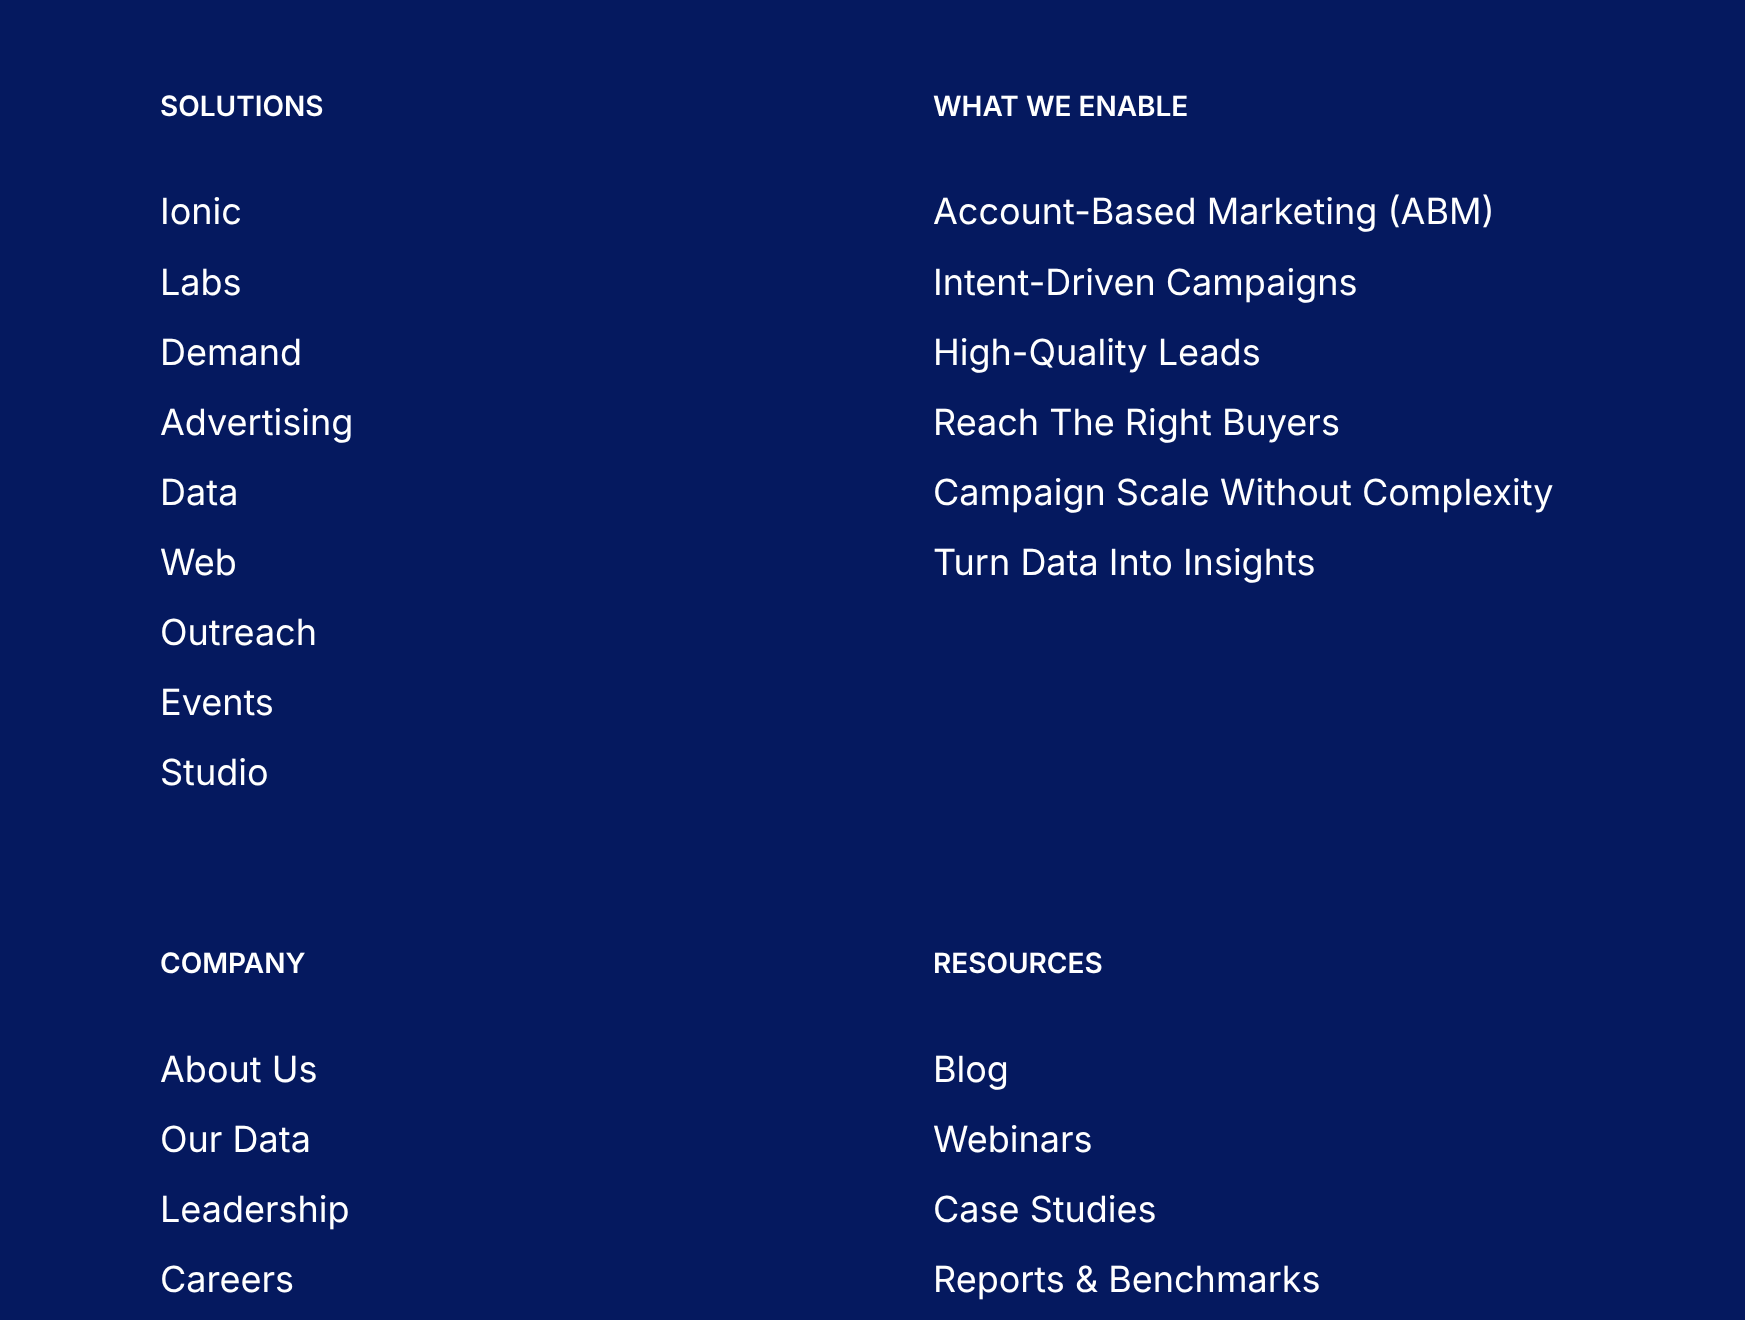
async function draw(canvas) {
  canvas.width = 1745
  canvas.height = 1320
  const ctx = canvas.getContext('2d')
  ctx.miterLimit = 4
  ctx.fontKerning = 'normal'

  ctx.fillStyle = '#05195f'
  ctx.fillRect(0, 0, 1745, 1320)
  ctx.font = '600 28px Inter'
  ctx.fillStyle = '#fff'
  ctx.fillText('SOLUTIONS', 160, 116)
  ctx.font = '36px Inter'
  ctx.fillText('Ionic', 160, 224)
  ctx.fillText('Labs', 160, 295)
  ctx.fillText('Demand', 160, 365)
  ctx.fillText('Advertising', 160, 435)
  ctx.fillText('Data', 160, 505)
  ctx.fillText('Web', 160, 575)
  ctx.fillText('Outreach', 160, 645)
  ctx.fillText('Events', 160, 715)
  ctx.fillText('Studio', 160, 785)
  ctx.font = '600 28px Inter'
  ctx.fillText('WHAT WE ENABLE', 933, 116)
  ctx.font = '36px Inter'
  ctx.fillText('Account-Based Marketing (ABM)', 933, 224)
  ctx.fillText('Intent-Driven Campaigns', 933, 295)
  ctx.fillText('High-Quality Leads', 933, 365)
  ctx.fillText('Reach The Right Buyers', 933, 435)
  ctx.fillText('Campaign Scale Without Complexity', 933, 505)
  ctx.fillText('Turn Data Into Insights', 933, 575)
  ctx.font = '600 28px Inter'
  ctx.fillText('COMPANY', 160, 973)
  ctx.font = '36px Inter'
  ctx.fillText('About Us', 160, 1082)
  ctx.fillText('Our Data', 160, 1152)
  ctx.fillText('Leadership', 160, 1222)
  ctx.fillText('Careers', 160, 1292)
  ctx.font = '600 28px Inter'
  ctx.fillText('RESOURCES', 933, 973)
  ctx.font = '36px Inter'
  ctx.fillText('Blog', 933, 1082)
  ctx.fillText('Webinars', 933, 1152)
  ctx.fillText('Case Studies', 933, 1222)
  ctx.fillText('Reports & Benchmarks', 933, 1292)
}

draw(document.querySelector('canvas'))
